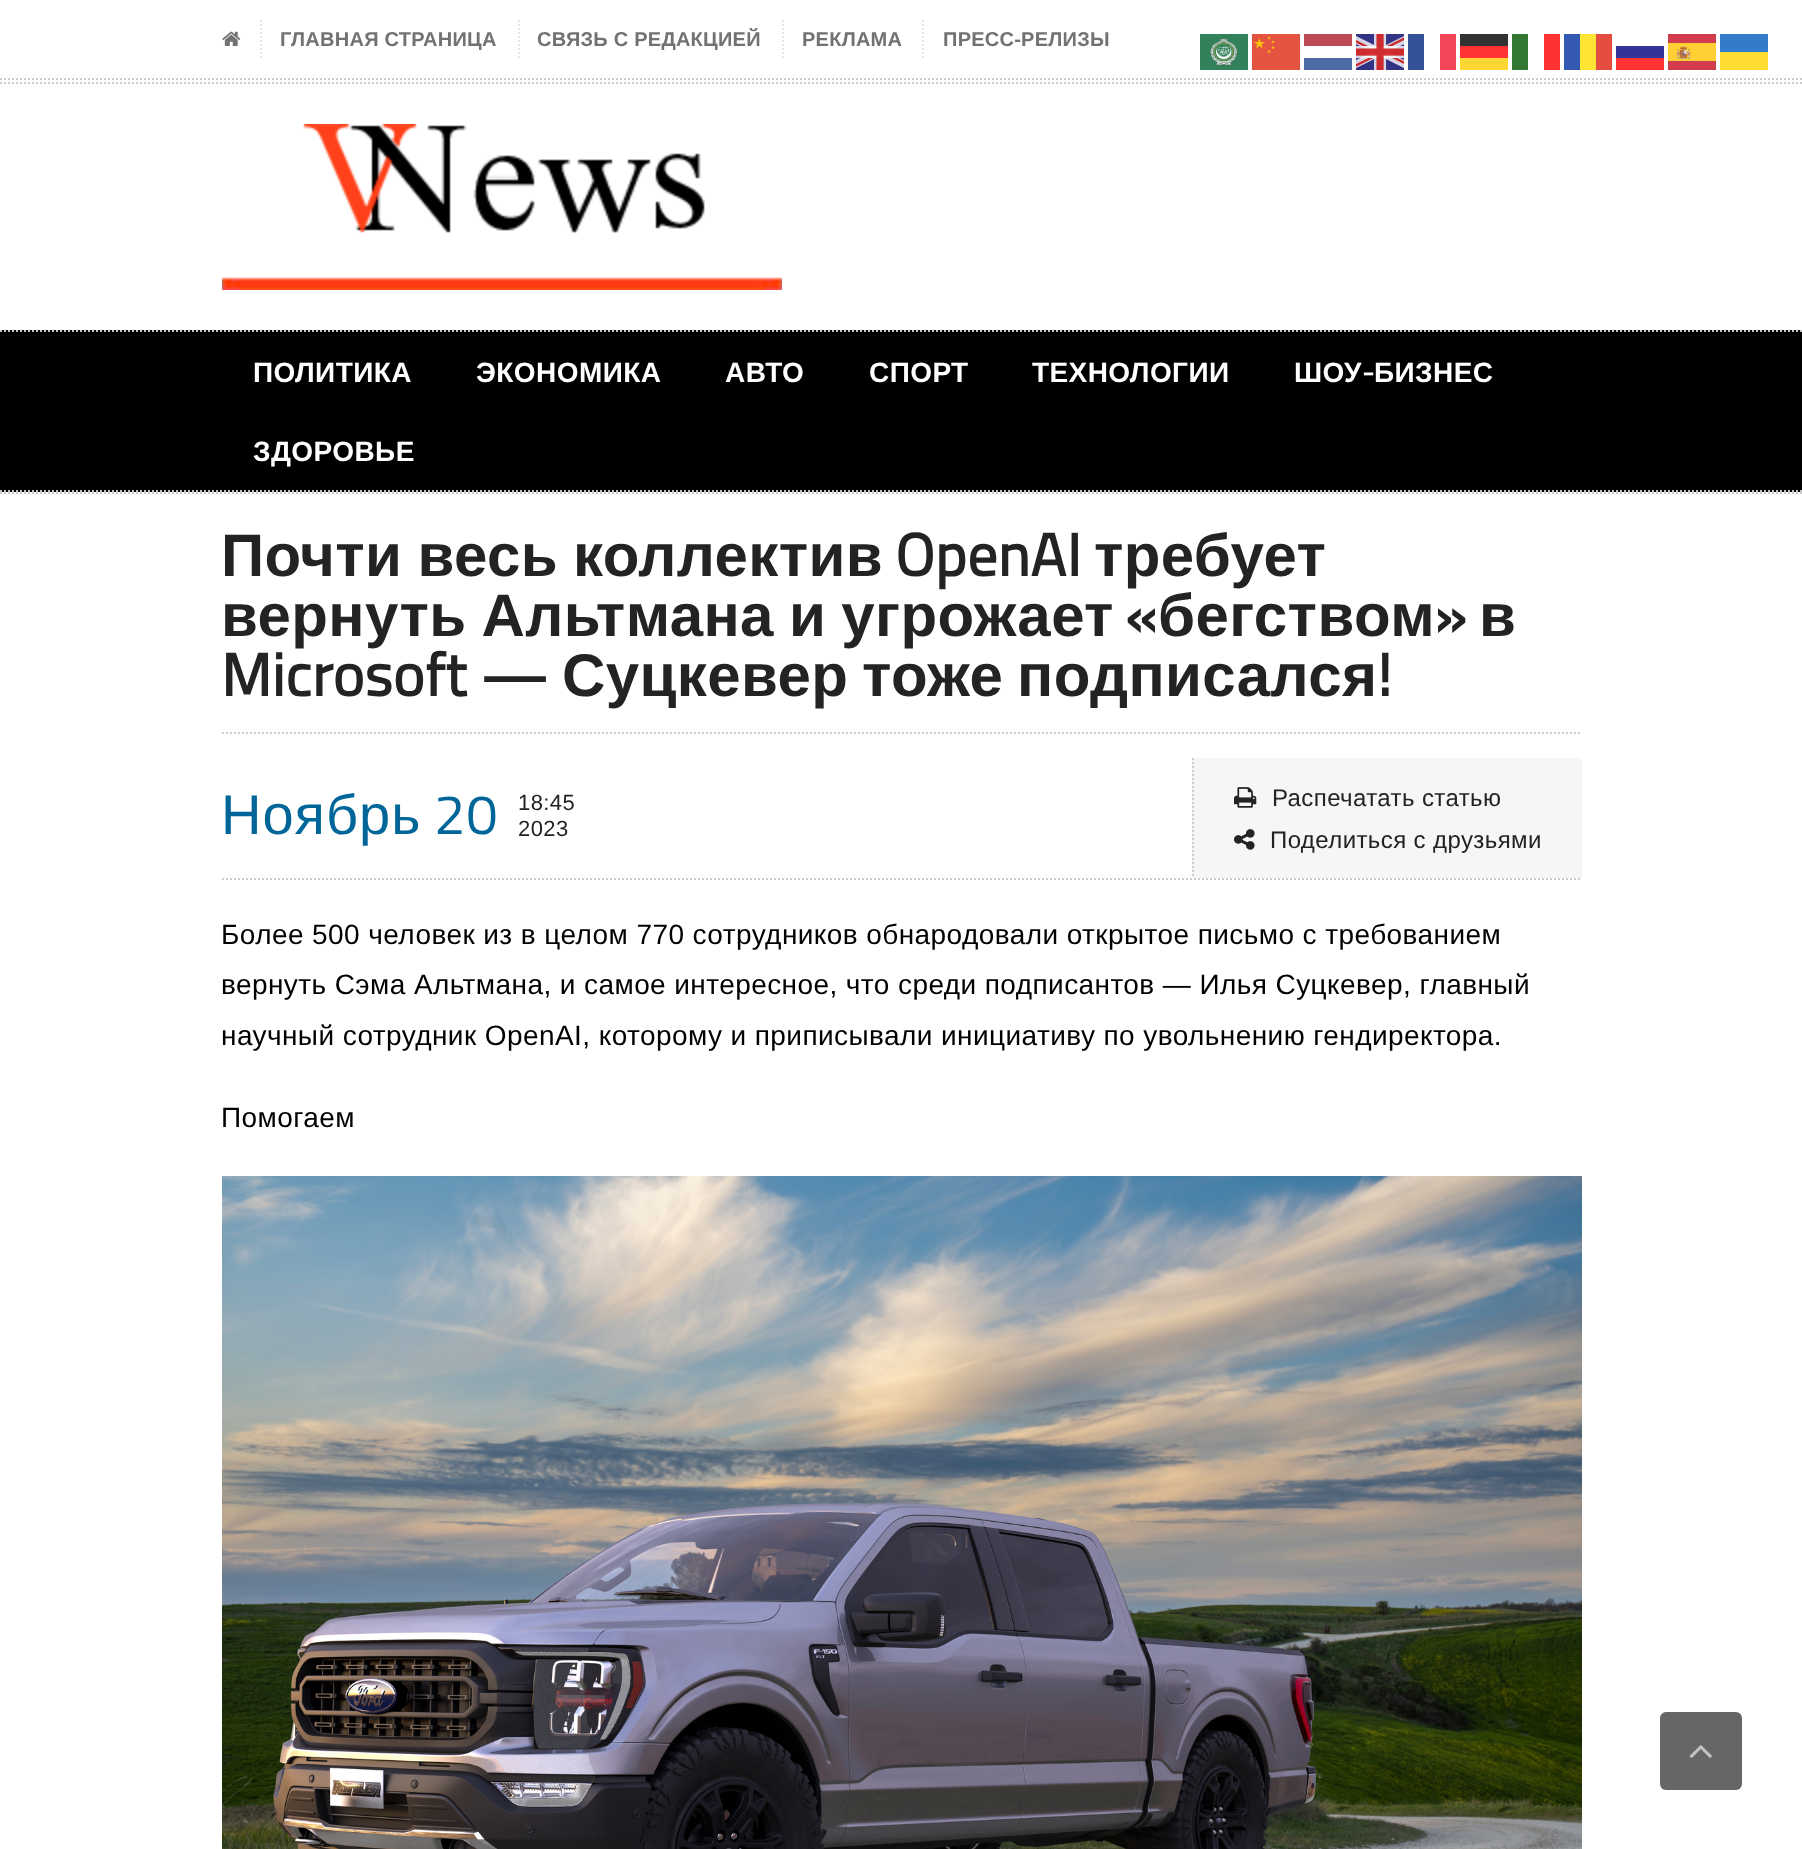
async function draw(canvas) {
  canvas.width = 1802
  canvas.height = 1849
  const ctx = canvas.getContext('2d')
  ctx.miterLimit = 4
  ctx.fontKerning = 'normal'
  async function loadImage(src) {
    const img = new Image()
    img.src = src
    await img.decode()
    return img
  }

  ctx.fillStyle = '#fff'
  ctx.fillRect(0, 0, 1802, 1849)
  ctx.beginPath()
  ctx.moveTo(261, 20)
  ctx.lineTo(261, 58)
  ctx.strokeStyle = '#e5e5e5'
  ctx.lineWidth = 2
  ctx.setLineDash([2, 2])
  ctx.stroke()
  ctx.drawImage(await loadImage('image0.png'), 222, 31, 19, 15)
  ctx.beginPath()
  ctx.moveTo(519, 20)
  ctx.lineTo(519, 58)
  ctx.stroke()
  ctx.letterSpacing = '0.25px'
  ctx.font = 'bold 20px Liberation Sans'
  ctx.fillStyle = '#727272'
  ctx.fillText('ГЛАВНАЯ СТРАНИЦА', 280, 46)
  ctx.beginPath()
  ctx.moveTo(783, 20)
  ctx.lineTo(783, 58)
  ctx.stroke()
  ctx.fillText('СВЯЗЬ С РЕДАКЦИЕЙ', 537, 46)
  ctx.beginPath()
  ctx.moveTo(923, 20)
  ctx.lineTo(923, 58)
  ctx.stroke()
  ctx.fillText('РЕКЛАМА', 802, 46)
  ctx.fillText('ПРЕСС-РЕЛИЗЫ', 943, 46)
  ctx.beginPath()
  ctx.moveTo(0, 79)
  ctx.lineTo(1802, 79)
  ctx.strokeStyle = '#ccc'
  ctx.stroke()
  ctx.beginPath()
  ctx.moveTo(0, 83)
  ctx.lineTo(1802, 83)
  ctx.stroke()
  ctx.drawImage(await loadImage('image1.png'), 222, 124, 560, 166)
  ctx.fillStyle = '#000'
  ctx.fillRect(0, 330, 1802, 162)
  ctx.beginPath()
  ctx.moveTo(0, 331)
  ctx.lineTo(1802, 331)
  ctx.strokeStyle = '#c5c5c5'
  ctx.stroke()
  ctx.beginPath()
  ctx.moveTo(0, 491)
  ctx.lineTo(1802, 491)
  ctx.stroke()
  ctx.letterSpacing = '0.42px'
  ctx.font = 'bold 28px Liberation Sans'
  ctx.fillStyle = '#fff'
  ctx.fillText('ПОЛИТИКА', 253, 382)
  ctx.fillText('ЭКОНОМИКА', 476, 382)
  ctx.fillText('АВТО', 725, 382)
  ctx.fillText('СПОРТ', 869, 382)
  ctx.fillText('ТЕХНОЛОГИИ', 1032, 382)
  ctx.fillText('ШОУ', 1294, 382)
  ctx.font = 'bold 28px Titillium Web'
  ctx.fillText('-', 1362, 382)
  ctx.font = 'bold 28px Liberation Sans'
  ctx.fillText('БИЗНЕС', 1374, 382)
  ctx.fillText('ЗДОРОВЬЕ', 253, 461)
  ctx.beginPath()
  ctx.moveTo(0, 493)
  ctx.lineTo(1802, 493)
  ctx.strokeStyle = '#ccc'
  ctx.stroke()
  ctx.beginPath()
  ctx.moveTo(222, 733)
  ctx.lineTo(1582, 733)
  ctx.stroke()
  ctx.letterSpacing = '0.4px'
  ctx.wordSpacing = '-2px'
  ctx.font = 'bold 60px Liberation Sans'
  ctx.fillStyle = '#232323'
  ctx.fillText('Почти весь коллектив', 221, 576)
  ctx.wordSpacing = '0px'
  ctx.font = 'bold 60px Titillium Web'
  ctx.fillText('OpenAI', 895, 576)
  ctx.font = 'bold 60px Liberation Sans'
  ctx.fillText('требует', 1094, 576)
  ctx.wordSpacing = '-2px'
  ctx.fillText('вернуть Альтмана и угрожает', 221, 636)
  ctx.wordSpacing = '0px'
  ctx.font = 'bold 60px Titillium Web'
  ctx.fillText('«', 1125, 636)
  ctx.font = 'bold 60px Liberation Sans'
  ctx.fillText('бегством', 1158, 636)
  ctx.font = 'bold 60px Titillium Web'
  ctx.fillText('»', 1434, 636)
  ctx.font = 'bold 60px Liberation Sans'
  ctx.fillText('в', 1479, 636)
  ctx.font = 'bold 60px Titillium Web'
  ctx.fillText('Microsoft —', 221, 696)
  ctx.font = 'bold 60px Liberation Sans'
  ctx.fillText('Суцкевер', 562, 696)
  ctx.fillText('тоже', 862, 696)
  ctx.fillText('подписался', 1017, 696)
  ctx.font = 'bold 60px Titillium Web'
  ctx.fillText('!', 1377, 696)
  ctx.beginPath()
  ctx.moveTo(222, 879)
  ctx.lineTo(1582, 879)
  ctx.stroke()
  ctx.letterSpacing = '1px'
  ctx.font = '56px Liberation Sans'
  ctx.fillStyle = '#069'
  ctx.fillText('Ноябрь', 221, 834)
  ctx.font = '56px Titillium Web'
  ctx.fillText('20', 434, 834)
  ctx.letterSpacing = '0.4px'
  ctx.font = '22px Liberation Sans'
  ctx.fillStyle = '#232323'
  ctx.fillText('18:45', 518, 810)
  ctx.fillText('2023', 518, 836)
  ctx.fillStyle = '#f6f6f6'
  ctx.fillRect(1192, 758, 390, 120)
  ctx.beginPath()
  ctx.moveTo(1193, 758)
  ctx.lineTo(1193, 878)
  ctx.stroke()
  ctx.drawImage(await loadImage('image2.png'), 1234, 787, 23, 21)
  ctx.font = '24px Liberation Sans'
  ctx.fillStyle = '#232323'
  ctx.fillText('Распечатать статью', 1272, 806)
  ctx.drawImage(await loadImage('image3.png'), 1234, 829, 21, 21)
  ctx.fillText('Поделиться с друзьями', 1270, 848)
  ctx.letterSpacing = '0.42px'
  ctx.font = '28px Liberation Sans'
  ctx.fillStyle = '#000'
  ctx.fillText('Более 500 человек из в целом 770 сотрудников обнародовали открытое письмо с требованием', 221, 944)
  ctx.fillText('вернуть Сэма Альтмана, и самое интересное, что среди подписантов — Илья Суцкевер, главный', 221, 994)
  ctx.fillText('научный сотрудник OpenAI, которому и приписывали инициативу по увольнению гендиректора.', 221, 1045)
  ctx.fillText('Помогаем', 221, 1127)
  ctx.drawImage(await loadImage('image4.png'), 222, 1176, 1360, 673)
  ctx.drawImage(await loadImage('image5.png'), 1200, 34, 48, 36)
  ctx.drawImage(await loadImage('image6.png'), 1252, 34, 48, 36)
  ctx.fillStyle = '#be4953'
  ctx.fillRect(1304, 34, 48, 12)
  ctx.drawImage(await loadImage('image7.png'), 1356, 34, 48, 36)
  ctx.fillStyle = '#335199'
  ctx.fillRect(1408, 34, 16, 36)
  ctx.fillStyle = '#f54659'
  ctx.fillRect(1440, 34, 16, 36)
  ctx.fillStyle = '#333'
  ctx.fillRect(1460, 34, 48, 12)
  ctx.fillStyle = '#337933'
  ctx.fillRect(1512, 34, 16, 36)
  ctx.fillStyle = '#fd3333'
  ctx.fillRect(1544, 34, 16, 36)
  ctx.fillStyle = '#335ab0'
  ctx.fillRect(1564, 34, 16, 36)
  ctx.fillStyle = '#ffe533'
  ctx.fillRect(1580, 34, 16, 36)
  ctx.fillStyle = '#e54d40'
  ctx.fillRect(1596, 34, 16, 36)
  ctx.drawImage(await loadImage('image8.png'), 1668, 34, 48, 36)
  ctx.fillStyle = '#337cc9'
  ctx.fillRect(1720, 34, 48, 18)
  ctx.fillStyle = '#4d6ba2'
  ctx.fillRect(1304, 58, 48, 12)
  ctx.fillStyle = '#f33'
  ctx.fillRect(1460, 46, 48, 12)
  ctx.fillStyle = '#343498'
  ctx.fillRect(1616, 46, 48, 12)
  ctx.fillStyle = '#fd3'
  ctx.fillRect(1720, 52, 48, 18)
  ctx.fillStyle = '#ffd633'
  ctx.fillRect(1460, 58, 48, 12)
  ctx.fillStyle = '#fe3434'
  ctx.fillRect(1616, 58, 48, 12)
  ctx.fillStyle = '#666'
  ctx.beginPath()
  ctx.roundRect(1660, 1712, 82, 78, 6)
  ctx.fill()
  ctx.drawImage(await loadImage('image9.png'), 1689, 1745, 23, 13)
}

draw(document.querySelector('canvas'))
